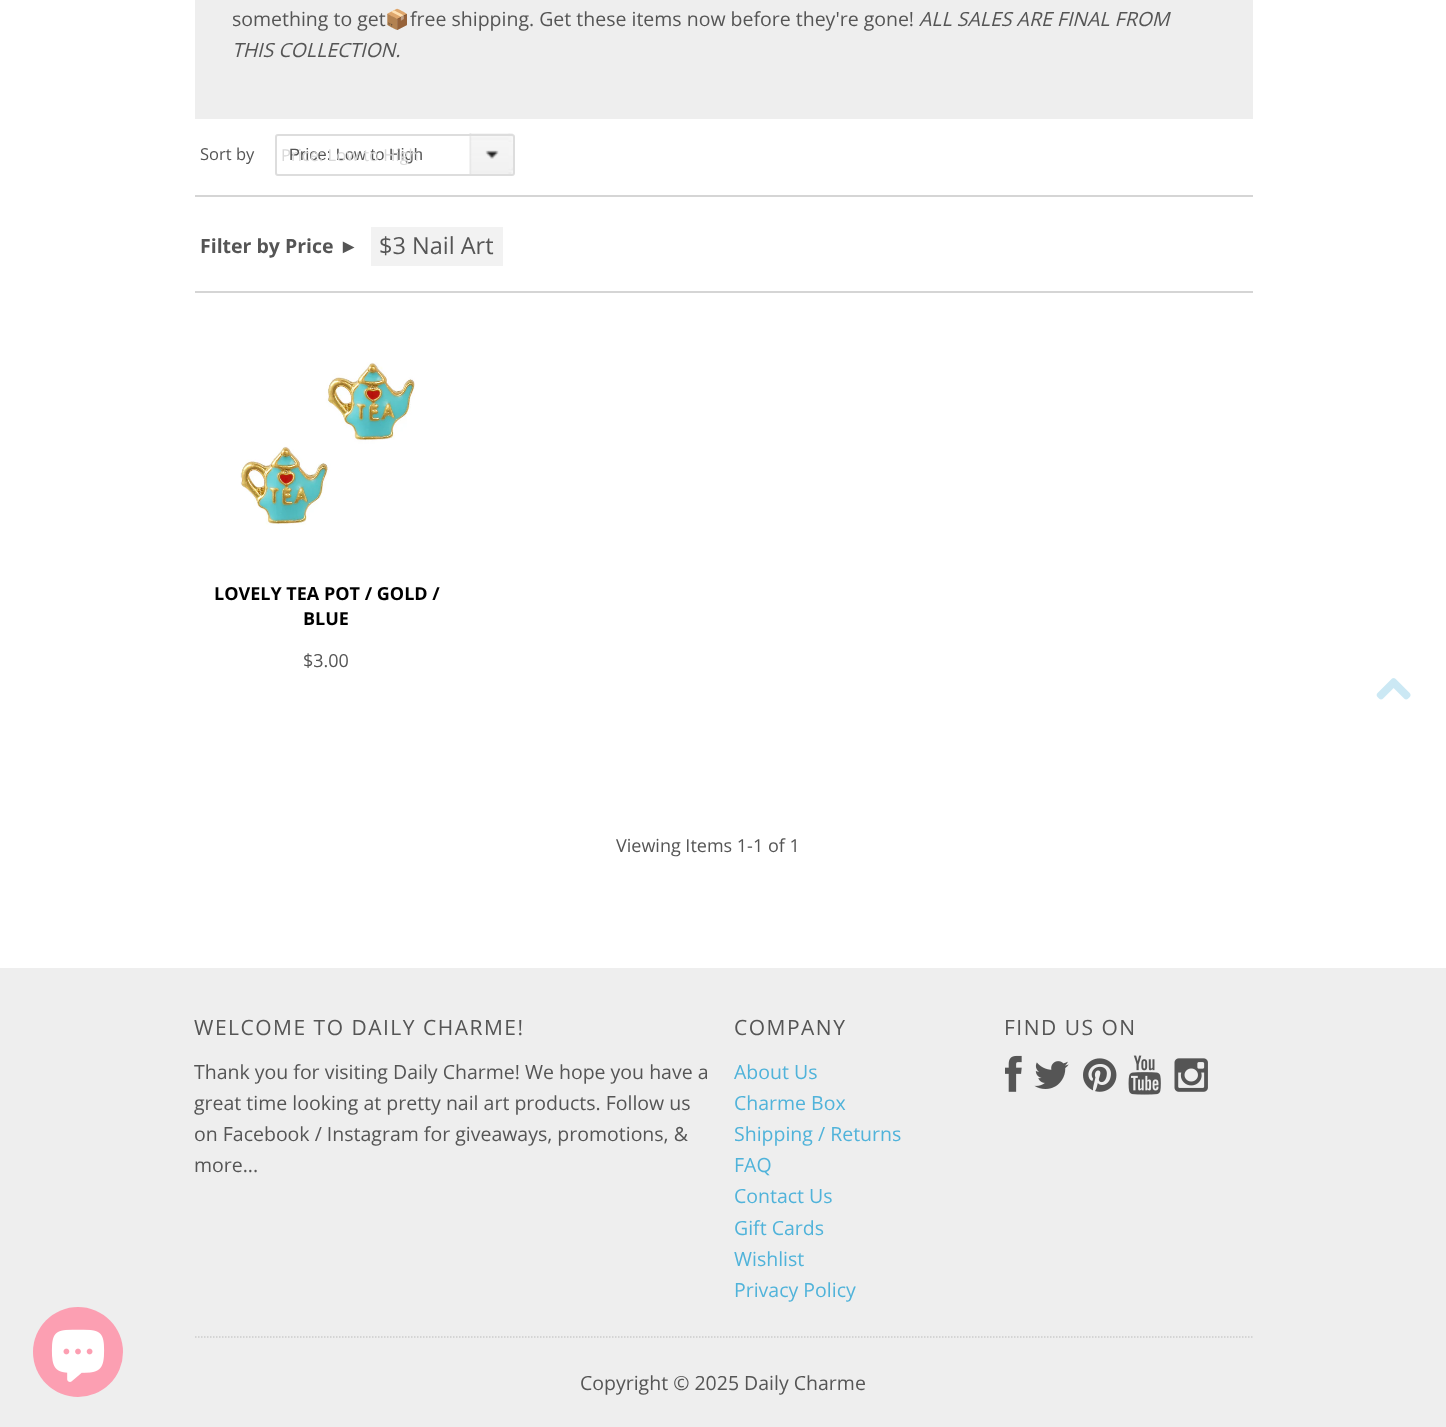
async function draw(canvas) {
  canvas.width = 1446
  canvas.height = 1427
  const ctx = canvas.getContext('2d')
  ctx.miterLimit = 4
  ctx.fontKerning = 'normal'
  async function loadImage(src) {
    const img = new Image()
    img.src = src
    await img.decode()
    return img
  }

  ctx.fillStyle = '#fff'
  ctx.fillRect(0, 0, 1446, 1427)
  ctx.fillStyle = '#eee'
  ctx.fillRect(195, 0, 1058, 119)
  ctx.font = '19.5px Open Sans'
  ctx.fillStyle = '#555'
  ctx.fillText('something to get', 232, 26)
  ctx.font = '19.5px Noto Color Emoji'
  ctx.fillText('📦', 385, 26)
  ctx.font = '19.5px Open Sans'
  ctx.fillText('free shipping. Get these items now before they\'re gone!', 410, 26)
  ctx.font = 'italic 19.5px Open Sans'
  ctx.fillText('ALL SALES ARE FINAL FROM', 919, 26)
  ctx.fillText('THIS COLLECTION.', 232, 57)
  ctx.font = '16.5px Open Sans'
  ctx.fillText('Sort by', 200, 160)
  ctx.drawImage(await loadImage('image0.png'), 469, 133, 44, 41)
  ctx.beginPath()
  ctx.roundRect(276, 135, 238, 40, 2)
  ctx.strokeStyle = '#ddd'
  ctx.lineWidth = 2
  ctx.stroke()
  ctx.font = '16.5px Liberation Sans'
  ctx.fillText('Price: Low to High', 289, 160)
  ctx.font = '16.5px Open Sans'
  ctx.fillStyle = '#d9d9d9'
  ctx.fillText('Price: Low to High', 281, 161)
  ctx.fillStyle = '#d5d5d5'
  ctx.fillRect(195, 195, 1058, 2)
  ctx.fillRect(195, 291, 1058, 2)
  ctx.font = 'bold 19.5px Open Sans'
  ctx.fillStyle = '#555'
  ctx.fillText('Filter by Price', 200, 253)
  ctx.font = 'bold 19.5px Liberation Sans'
  ctx.fillText('►', 339, 253)
  ctx.fillStyle = '#f2f2f2'
  ctx.fillRect(371, 227, 132, 39)
  ctx.font = '23.5px Open Sans'
  ctx.fillStyle = '#555'
  ctx.fillText('$3 Nail Art', 379, 254)
  ctx.drawImage(await loadImage('image1.png'), 240, 362, 175, 163)
  ctx.font = 'bold 18px Open Sans'
  ctx.fillStyle = '#000'
  ctx.fillText('LOVELY TEA POT / GOLD /', 214, 600)
  ctx.fillText('BLUE', 303, 625)
  ctx.font = '18px Open Sans'
  ctx.fillStyle = '#555'
  ctx.fillText('$3.00', 303, 667)
  ctx.fillText('Viewing Items 1-1 of 1', 616, 852)
  ctx.drawImage(await loadImage('image2.png'), 1376, 678, 35, 22)
  ctx.fillStyle = '#eee'
  ctx.fillRect(0, 968, 1446, 459)
  ctx.fillStyle = '#fc9fb2'
  ctx.beginPath()
  ctx.arc(78, 1352, 45, 0, 2 * Math.PI)
  ctx.fill()
  ctx.drawImage(await loadImage('image3.png'), 51, 1329, 54, 53)
  ctx.letterSpacing = '1.5px'
  ctx.font = '21px Open Sans'
  ctx.fillStyle = '#555'
  ctx.fillText('WELCOME TO DAILY CHARME!', 194, 1035)
  ctx.letterSpacing = '0px'
  ctx.font = '19.5px Open Sans'
  ctx.fillText('Thank you for visiting Daily Charme! We hope you have a', 194, 1079)
  ctx.fillText('great time looking at pretty nail art products. Follow us', 194, 1110)
  ctx.fillText('on Facebook / Instagram for giveaways, promotions, &', 194, 1141)
  ctx.fillText('more...', 194, 1172)
  ctx.letterSpacing = '1.5px'
  ctx.font = '21px Open Sans'
  ctx.fillText('COMPANY', 734, 1035)
  ctx.letterSpacing = '0px'
  ctx.font = '19.5px Open Sans'
  ctx.fillStyle = '#50b3da'
  ctx.fillText('About Us', 734, 1079)
  ctx.fillText('Charme Box', 734, 1110)
  ctx.fillText('Shipping / Returns', 734, 1141)
  ctx.fillText('FAQ', 734, 1172)
  ctx.fillText('Contact Us', 734, 1203)
  ctx.fillText('Gift Cards', 734, 1235)
  ctx.fillText('Wishlist', 734, 1266)
  ctx.fillText('Privacy Policy', 734, 1297)
  ctx.letterSpacing = '1.5px'
  ctx.font = '21px Open Sans'
  ctx.fillStyle = '#555'
  ctx.fillText('FIND US ON', 1004, 1035)
  ctx.drawImage(await loadImage('image4.png'), 1005, 1055, 17, 37)
  ctx.drawImage(await loadImage('image5.png'), 1034, 1061, 35, 28)
  ctx.drawImage(await loadImage('image6.png'), 1083, 1058, 34, 34)
  ctx.drawImage(await loadImage('image7.png'), 1128, 1055, 33, 40)
  ctx.drawImage(await loadImage('image8.png'), 1174, 1058, 34, 34)
  ctx.beginPath()
  ctx.moveTo(195, 1337)
  ctx.lineTo(1252.5, 1337)
  ctx.strokeStyle = '#ccc'
  ctx.lineWidth = 1.5
  ctx.setLineDash([1.5, 1.5])
  ctx.stroke()
  ctx.letterSpacing = '0px'
  ctx.font = '19.5px Open Sans'
  ctx.fillText('Copyright © 2025 Daily Charme', 580, 1390)
}

draw(document.querySelector('canvas'))
